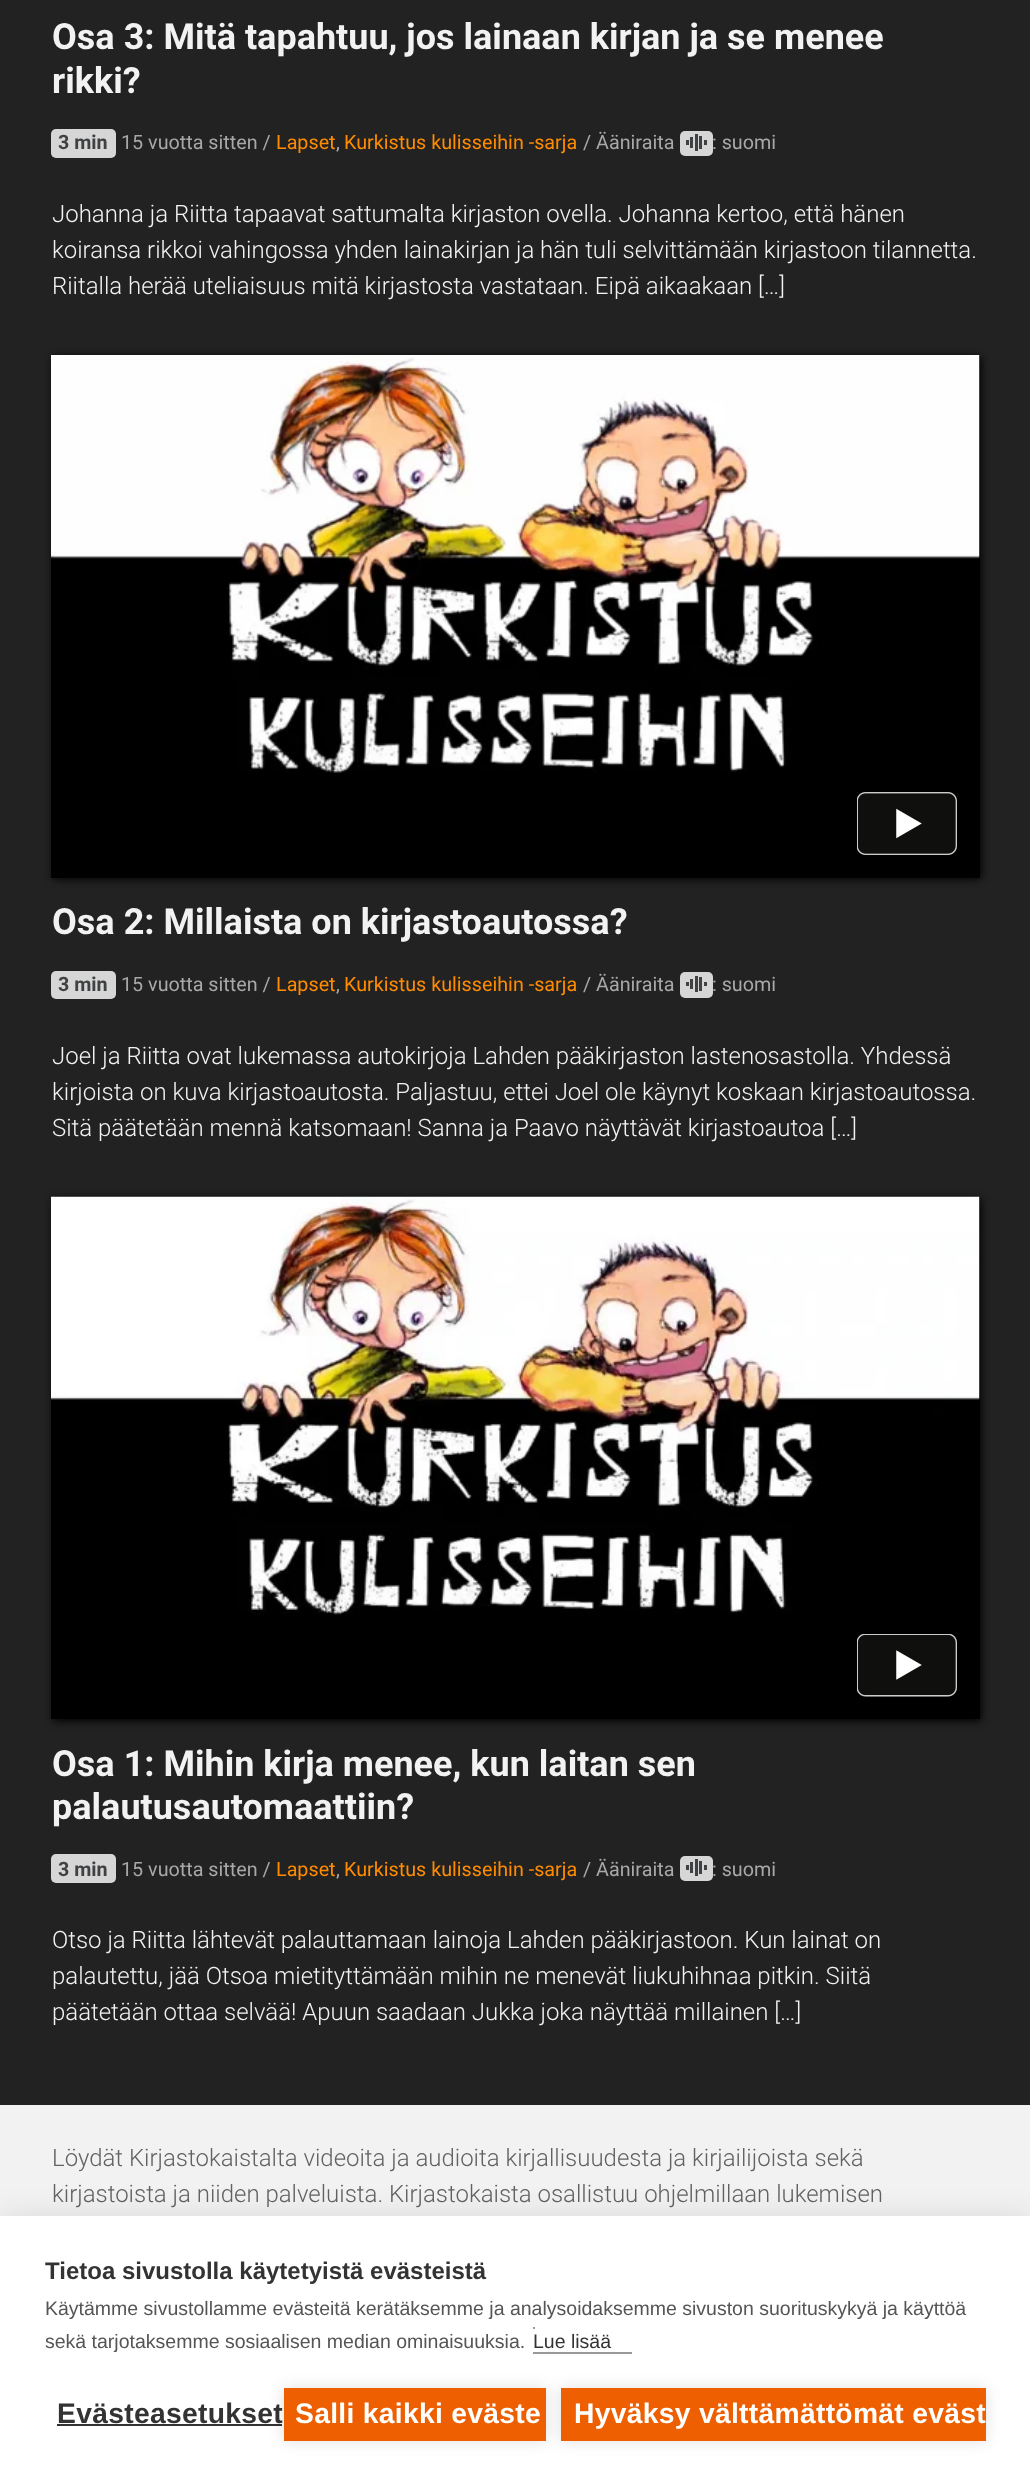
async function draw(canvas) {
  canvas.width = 1030
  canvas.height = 2477
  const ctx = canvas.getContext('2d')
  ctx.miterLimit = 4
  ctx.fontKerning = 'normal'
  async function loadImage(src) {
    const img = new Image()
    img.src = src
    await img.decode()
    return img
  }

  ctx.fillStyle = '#222'
  ctx.fillRect(0, 0, 1030, 2477)
  ctx.font = 'bold 36px Roboto'
  ctx.fillStyle = '#f2f2f2'
  ctx.fillText('Osa 3: Mitä tapahtuu, jos lainaan kirjan ja se menee', 52, 49)
  ctx.fillText('rikki?', 52, 93)
  ctx.fillStyle = '#d6d6d6'
  ctx.beginPath()
  ctx.roundRect(51, 129, 65, 29, 5)
  ctx.fill()
  ctx.font = 'bold 19.75px Roboto'
  ctx.fillStyle = '#3f4142'
  ctx.fillText('3 min', 58, 149)
  ctx.font = '19.75px Roboto'
  ctx.fillStyle = '#a8a8a8'
  ctx.fillText('15 vuotta sitten /', 121, 149)
  ctx.fillStyle = '#ff8c00'
  ctx.fillText('Lapset', 276, 149)
  ctx.fillStyle = '#a8a8a8'
  ctx.fillText(',', 336, 149)
  ctx.fillStyle = '#ff8c00'
  ctx.fillText('Kurkistus kulisseihin -sarja', 344, 149)
  ctx.fillStyle = '#a8a8a8'
  ctx.fillText('/ Ääniraita', 583, 149)
  ctx.fillStyle = '#d6d6d6'
  ctx.beginPath()
  ctx.roundRect(680, 131, 33, 25, 5)
  ctx.fill()
  ctx.drawImage(await loadImage('image0.png'), 686, 134, 21, 17)
  ctx.fillStyle = '#a8a8a8'
  ctx.fillText(': suomi', 712, 149)
  ctx.font = '300 24px Roboto'
  ctx.fillStyle = '#f2f2f2'
  ctx.fillText('Johanna ja Riitta tapaavat sattumalta kirjaston ovella. Johanna kertoo, että hänen', 52, 222)
  ctx.fillText('koiransa rikkoi vahingossa yhden lainakirjan ja hän tuli selvittämään kirjastoon tilannetta.', 52, 258)
  ctx.fillText('Riitalla herää uteliaisuus mitä kirjastosta vastataan. Eipä aikaakaan […]', 52, 294)
  ctx.fillStyle = '#000'
  ctx.filter = 'blur(4px)'
  ctx.beginPath()
  ctx.rect(53, 357, 928, 522)
  ctx.fill()
  ctx.filter = 'none'
  ctx.fillRect(51, 356, 929, 522)
  ctx.drawImage(await loadImage('image1.png'), 51, 355, 929, 418)
  ctx.drawImage(await loadImage('image2.png'), 857, 792, 100, 63)
  ctx.font = 'bold 36px Roboto'
  ctx.fillStyle = '#f2f2f2'
  ctx.fillText('Osa 2: Millaista on kirjastoautossa?', 52, 934)
  ctx.fillStyle = '#d6d6d6'
  ctx.beginPath()
  ctx.roundRect(51, 971, 65, 28, 5)
  ctx.fill()
  ctx.font = 'bold 19.75px Roboto'
  ctx.fillStyle = '#3f4142'
  ctx.fillText('3 min', 58, 991)
  ctx.font = '19.75px Roboto'
  ctx.fillStyle = '#a8a8a8'
  ctx.fillText('15 vuotta sitten /', 121, 991)
  ctx.fillStyle = '#ff8c00'
  ctx.fillText('Lapset', 276, 991)
  ctx.fillStyle = '#a8a8a8'
  ctx.fillText(',', 336, 991)
  ctx.fillStyle = '#ff8c00'
  ctx.fillText('Kurkistus kulisseihin -sarja', 344, 991)
  ctx.fillStyle = '#a8a8a8'
  ctx.fillText('/ Ääniraita', 583, 991)
  ctx.fillStyle = '#d6d6d6'
  ctx.beginPath()
  ctx.roundRect(680, 972, 33, 26, 5)
  ctx.fill()
  ctx.drawImage(await loadImage('image3.png'), 686, 976, 21, 16)
  ctx.fillStyle = '#a8a8a8'
  ctx.fillText(': suomi', 712, 991)
  ctx.font = '300 24px Roboto'
  ctx.fillStyle = '#f2f2f2'
  ctx.fillText('Joel ja Riitta ovat lukemassa autokirjoja Lahden pääkirjaston lastenosastolla. Yhdessä', 52, 1064)
  ctx.fillText('kirjoista on kuva kirjastoautosta. Paljastuu, ettei Joel ole käynyt koskaan kirjastoautossa.', 52, 1100)
  ctx.fillText('Sitä päätetään mennä katsomaan! Sanna ja Paavo näyttävät kirjastoautoa […]', 52, 1136)
  ctx.fillStyle = '#000'
  ctx.filter = 'blur(4px)'
  ctx.beginPath()
  ctx.rect(53, 1199, 928, 522)
  ctx.fill()
  ctx.filter = 'none'
  ctx.fillRect(51, 1197, 929, 522)
  ctx.drawImage(await loadImage('image4.png'), 51, 1196, 929, 419)
  ctx.drawImage(await loadImage('image5.png'), 857, 1634, 100, 63)
  ctx.font = 'bold 36px Roboto'
  ctx.fillStyle = '#f2f2f2'
  ctx.fillText('Osa 1: Mihin kirja menee, kun laitan sen', 52, 1776)
  ctx.fillText('palautusautomaattiin?', 52, 1819)
  ctx.fillStyle = '#d6d6d6'
  ctx.beginPath()
  ctx.roundRect(51, 1854, 65, 29, 5)
  ctx.fill()
  ctx.font = 'bold 19.75px Roboto'
  ctx.fillStyle = '#3f4142'
  ctx.fillText('3 min', 58, 1876)
  ctx.font = '19.75px Roboto'
  ctx.fillStyle = '#a8a8a8'
  ctx.fillText('15 vuotta sitten /', 121, 1876)
  ctx.fillStyle = '#ff8c00'
  ctx.fillText('Lapset', 276, 1876)
  ctx.fillStyle = '#a8a8a8'
  ctx.fillText(',', 336, 1876)
  ctx.fillStyle = '#ff8c00'
  ctx.fillText('Kurkistus kulisseihin -sarja', 344, 1876)
  ctx.fillStyle = '#a8a8a8'
  ctx.fillText('/ Ääniraita', 583, 1876)
  ctx.fillStyle = '#d6d6d6'
  ctx.beginPath()
  ctx.roundRect(680, 1856, 33, 25, 5)
  ctx.fill()
  ctx.drawImage(await loadImage('image0.png'), 686, 1859, 21, 17)
  ctx.fillStyle = '#a8a8a8'
  ctx.fillText(': suomi', 712, 1876)
  ctx.font = '300 24px Roboto'
  ctx.fillStyle = '#f2f2f2'
  ctx.fillText('Otso ja Riitta lähtevät palauttamaan lainoja Lahden pääkirjastoon. Kun lainat on', 52, 1948)
  ctx.fillText('palautettu, jää Otsoa mietityttämään mihin ne menevät liukuhihnaa pitkin. Siitä', 52, 1984)
  ctx.fillText('päätetään ottaa selvää! Apuun saadaan Jukka joka näyttää millainen […]', 52, 2020)
  ctx.fillRect(0, 2105, 1030, 111)
  ctx.fillStyle = '#616263'
  ctx.fillText('Löydät Kirjastokaistalta videoita ja audioita kirjallisuudesta ja kirjailijoista sekä', 52, 2166)
  ctx.fillText('kirjastoista ja niiden palveluista. Kirjastokaista osallistuu ohjelmillaan lukemisen', 52, 2202)
  ctx.fillStyle = '#0000001a'
  ctx.filter = 'blur(15px)'
  ctx.beginPath()
  ctx.rect(0, 2216, 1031, 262)
  ctx.fill()
  ctx.filter = 'none'
  ctx.fillStyle = '#fff'
  ctx.fillRect(0, 2216, 1030, 261)
  ctx.font = 'bold 24px Liberation Sans'
  ctx.fillStyle = '#333'
  ctx.fillText('Tietoa sivustolla käytetyistä evästeistä', 45, 2279)
  ctx.font = '19.5px Liberation Sans'
  ctx.fillStyle = '#555'
  ctx.fillText('Käytämme sivustollamme evästeitä kerätäksemme ja analysoidaksemme sivuston suorituskykyä ja käyttöä', 45, 2315)
  ctx.fillText('sekä tarjotaksemme sosiaalisen median ominaisuuksia.', 45, 2348)
  ctx.fillStyle = '#333'
  ctx.fillText('Lue lisää', 533, 2348)
  ctx.fillStyle = '#999'
  ctx.fillRect(533, 2327, 2, 2)
  ctx.fillRect(533, 2352, 99, 2)
  ctx.letterSpacing = '0.3px'
  ctx.font = 'bold 28.25px Liberation Sans'
  ctx.fillStyle = '#333'
  ctx.fillText('Evästeasetukset', 57, 2423)
  ctx.fillRect(57, 2424, 225, 2)
  ctx.fillStyle = '#0000001f'
  ctx.filter = 'blur(7.5px)'
  ctx.beginPath()
  ctx.rect(284, 2388, 262, 53)
  ctx.fill()
  ctx.filter = 'none'
  ctx.fillStyle = '#ed5f00'
  ctx.fillRect(284, 2388, 262, 53)
  ctx.fillStyle = '#fff'
  ctx.fillText('Salli kaikki eväste', 295, 2423)
  ctx.fillStyle = '#0000001f'
  ctx.filter = 'blur(7.5px)'
  ctx.beginPath()
  ctx.rect(561, 2388, 425, 53)
  ctx.fill()
  ctx.filter = 'none'
  ctx.fillStyle = '#ed5f00'
  ctx.fillRect(561, 2388, 425, 53)
  ctx.fillStyle = '#fff'
  ctx.fillText('Hyväksy välttämättömät eväst', 574, 2423)
}

draw(document.querySelector('canvas'))
